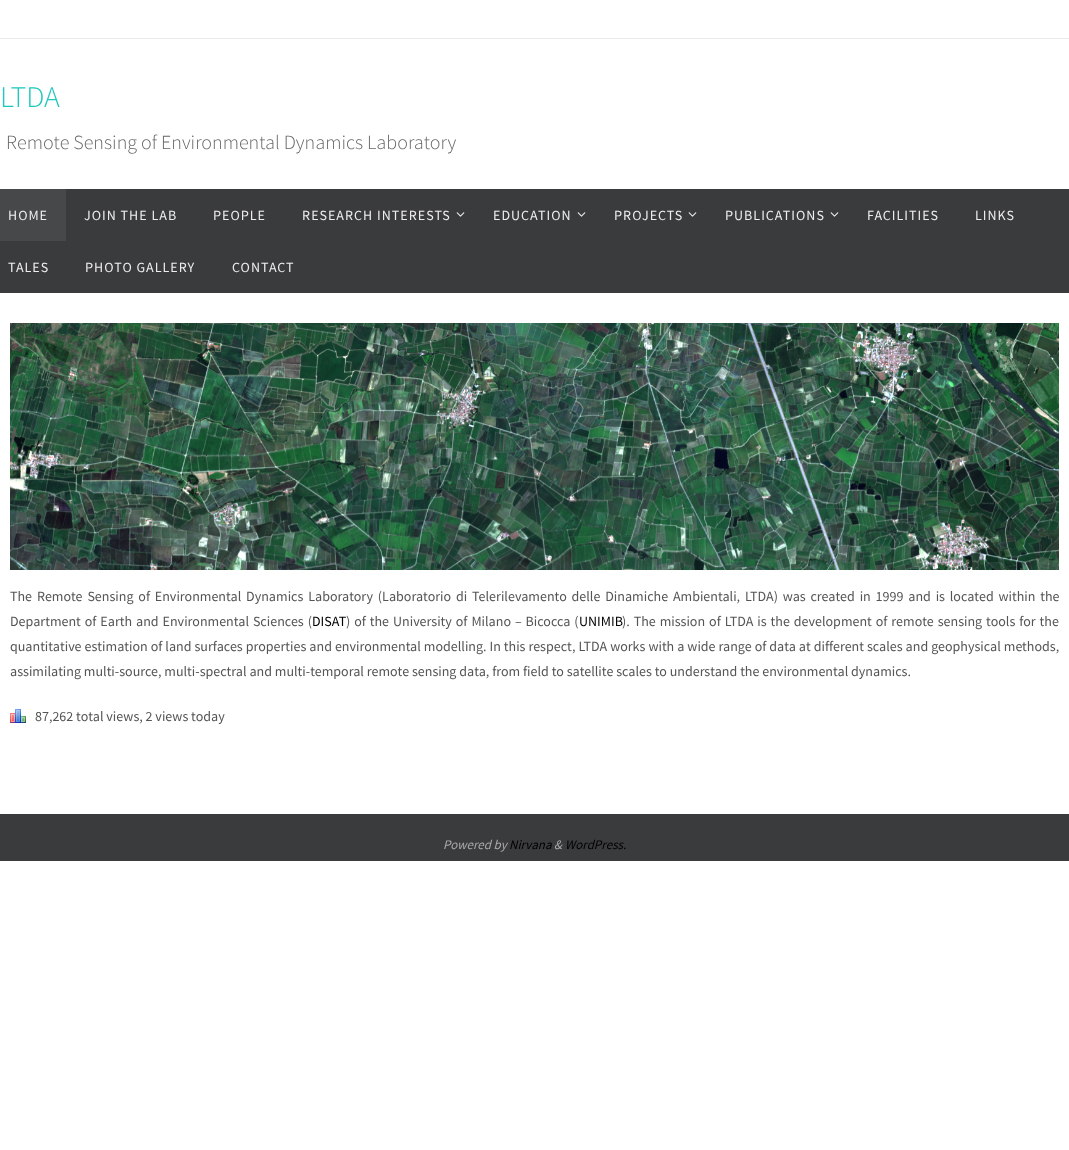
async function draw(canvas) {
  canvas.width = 1069
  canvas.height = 1150
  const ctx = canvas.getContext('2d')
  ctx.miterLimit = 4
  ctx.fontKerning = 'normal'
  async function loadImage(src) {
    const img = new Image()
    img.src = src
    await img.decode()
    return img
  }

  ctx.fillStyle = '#fff'
  ctx.fillRect(0, 0, 1069, 1150)
  ctx.fillStyle = '#ebebeb'
  ctx.fillRect(0, 38, 1069, 1)
  ctx.font = '300 30px Source Sans Pro'
  ctx.fillStyle = '#1ec8bb'
  ctx.fillText('LTDA', 0, 107)
  ctx.font = '300 20px Source Sans Pro'
  ctx.fillStyle = '#666'
  ctx.fillText('Remote Sensing of Environmental Dynamics Laboratory', 6, 149)
  ctx.fillStyle = '#3a3b3d'
  ctx.fillRect(0, 189, 1069, 104)
  ctx.fillStyle = '#47484a'
  ctx.fillRect(0, 189, 66, 52)
  ctx.letterSpacing = '1px'
  ctx.font = '14px Source Sans Pro'
  ctx.fillStyle = '#eee'
  ctx.fillText('HOME', 8, 220)
  ctx.fillText('JOIN THE LAB', 84, 220)
  ctx.fillText('PEOPLE', 213, 220)
  ctx.fillText('RESEARCH INTERESTS', 302, 220)
  ctx.drawImage(await loadImage('image0.png'), 456, 212, 9, 5)
  ctx.fillText('EDUCATION', 493, 220)
  ctx.drawImage(await loadImage('image0.png'), 577, 212, 9, 5)
  ctx.fillText('PROJECTS', 614, 220)
  ctx.drawImage(await loadImage('image0.png'), 688, 212, 9, 5)
  ctx.fillText('PUBLICATIONS', 725, 220)
  ctx.drawImage(await loadImage('image0.png'), 830, 212, 9, 5)
  ctx.fillText('FACILITIES', 867, 220)
  ctx.fillText('LINKS', 975, 220)
  ctx.fillText('TALES', 8, 272)
  ctx.fillText('PHOTO GALLERY', 85, 272)
  ctx.fillText('CONTACT', 232, 272)
  ctx.drawImage(await loadImage('image1.png'), 10, 323, 1049, 247)
  ctx.letterSpacing = '0px'
  ctx.wordSpacing = '2px'
  ctx.fillStyle = '#555'
  ctx.fillText('The Remote Sensing of Environmental Dynamics Laboratory (Laboratorio di Telerilevamento delle Dinamiche Ambientali, LTDA) was created in 1999 and is located within the', 10, 601)
  ctx.wordSpacing = '1.1px'
  ctx.fillText('Department of Earth and Environmental Sciences (', 10, 626)
  ctx.wordSpacing = '0px'
  ctx.fillStyle = '#000'
  ctx.fillText('DISAT', 312, 626)
  ctx.wordSpacing = '1.1px'
  ctx.fillStyle = '#555'
  ctx.fillText(') of the University of Milano – Bicocca (', 346, 626)
  ctx.wordSpacing = '0px'
  ctx.fillStyle = '#000'
  ctx.fillText('UNIMIB', 579, 626)
  ctx.wordSpacing = '1.1px'
  ctx.fillStyle = '#555'
  ctx.fillText('). The mission of LTDA is the development of remote sensing tools for the', 622, 626)
  ctx.wordSpacing = '0.15px'
  ctx.fillText('quantitative estimation of land surfaces properties and environmental modelling. In this respect, LTDA works with a wide range of data at different scales and geophysical methods,', 10, 651)
  ctx.wordSpacing = '0px'
  ctx.fillText('assimilating multi-source, multi-spectral and multi-temporal remote sensing data, from field to satellite scales to understand the environmental dynamics.', 10, 676)
  ctx.drawImage(await loadImage('image2.png'), 10, 709, 16, 14)
  ctx.fillText('87,262 total views, 2 views today', 35, 721)
  ctx.fillStyle = '#3a3b3d'
  ctx.fillRect(0, 814, 1069, 47)
  ctx.font = 'italic 13px Source Sans Pro'
  ctx.fillStyle = '#aaa'
  ctx.fillText('Powered by', 443, 849)
  ctx.fillStyle = '#000'
  ctx.fillText('Nirvana', 509, 849)
  ctx.fillStyle = '#aaa'
  ctx.fillText('&', 554, 849)
  ctx.fillStyle = '#000'
  ctx.fillText('WordPress.', 565, 849)
}

draw(document.querySelector('canvas'))
